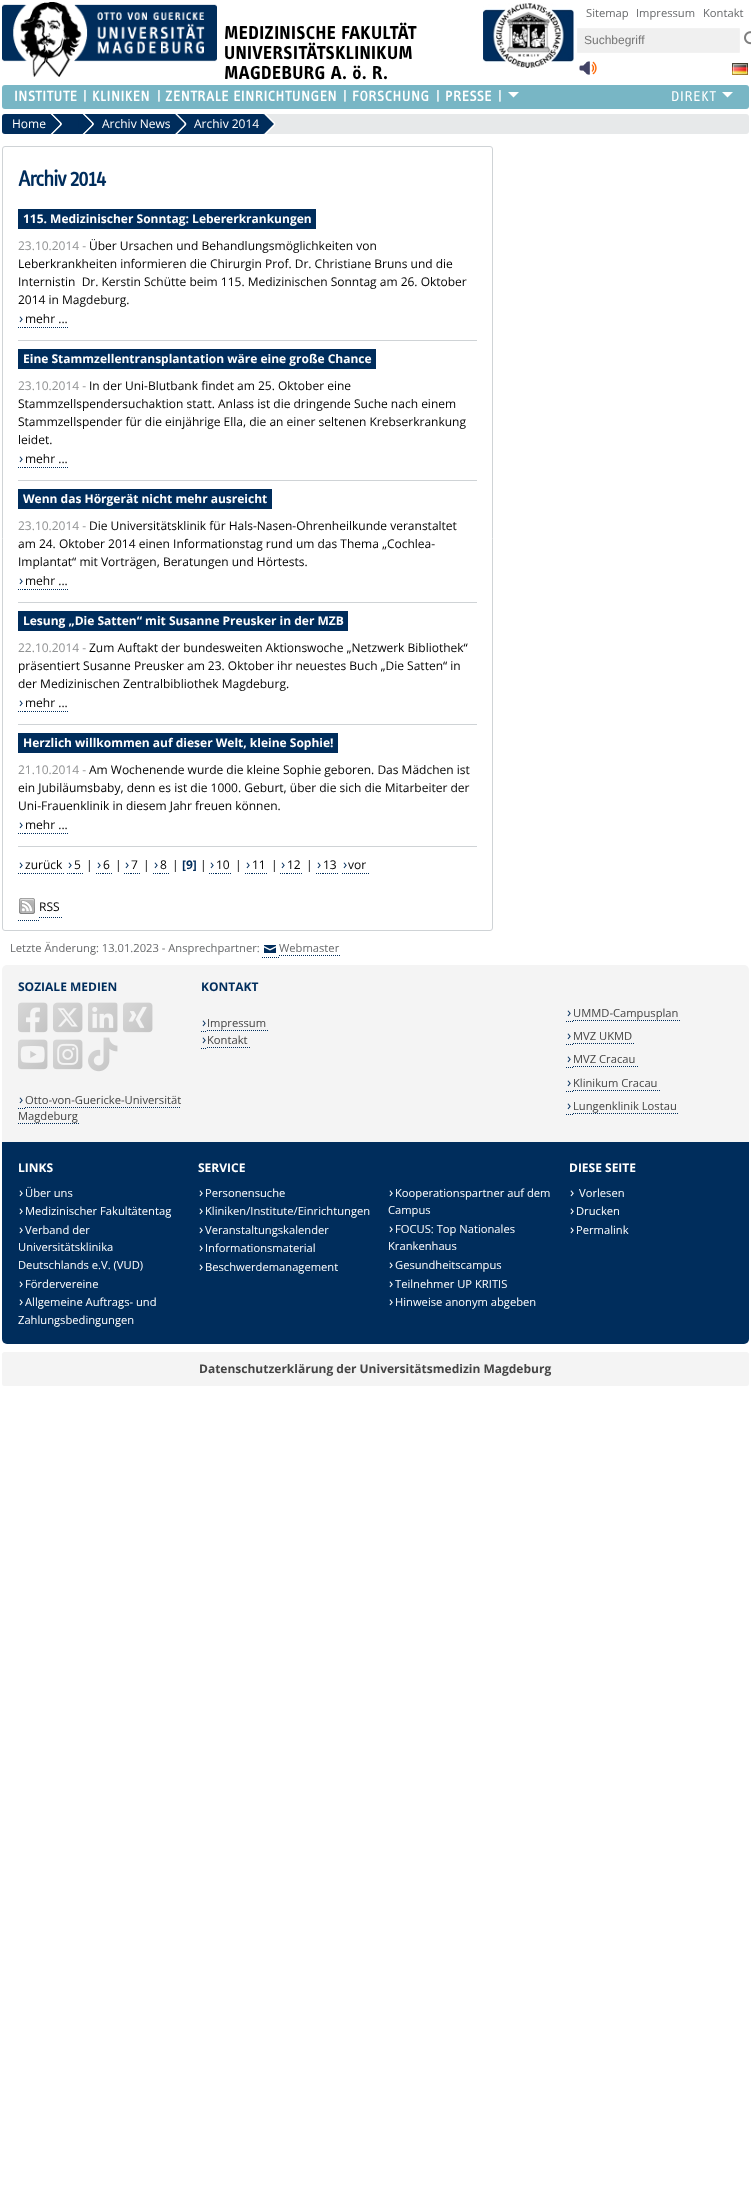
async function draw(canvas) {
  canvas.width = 751
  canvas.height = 2203
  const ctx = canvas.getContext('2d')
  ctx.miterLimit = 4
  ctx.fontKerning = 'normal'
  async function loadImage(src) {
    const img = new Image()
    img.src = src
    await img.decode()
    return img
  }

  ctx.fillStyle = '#fff'
  ctx.fillRect(0, 0, 751, 2203)
  ctx.drawImage(await loadImage('image0.png'), 2, 2, 215, 75)
  ctx.letterSpacing = '0.3px'
  ctx.font = 'bold 19.25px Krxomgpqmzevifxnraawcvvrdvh'
  ctx.fillStyle = '#000'
  ctx.fillText('MEDIZINISCHE FAKULTÄT', 224, 39)
  ctx.fillText('UNIVERSITÄTSKLINIKUM', 224, 59)
  ctx.fillText('MAGDEBURG A. ö. R.', 224, 79)
  ctx.drawImage(await loadImage('image1.png'), 483, 3, 91, 65)
  ctx.letterSpacing = '0px'
  ctx.font = '11.2px Open Sans'
  ctx.fillStyle = '#686a6c'
  ctx.fillText('Sitemap', 586, 17)
  ctx.fillText('Impressum', 636, 17)
  ctx.fillText('Kontakt', 703, 17)
  ctx.fillStyle = '#f0f0f0'
  ctx.beginPath()
  ctx.rect(577.5, 28.5, 162, 24)
  ctx.fill()
  ctx.strokeStyle = '#f2f2f2'
  ctx.stroke()
  ctx.font = '12px Liberation Sans'
  ctx.fillStyle = '#757575'
  ctx.fillText('Suchbegriff', 584, 44)
  ctx.drawImage(await loadImage('image2.png'), 744, 31, 7, 14)
  ctx.drawImage(await loadImage('image3.png'), 579, 61, 18, 14)
  ctx.drawImage(await loadImage('image4.png'), 732, 63, 16, 12)
  ctx.fillStyle = '#78b6c5'
  ctx.beginPath()
  ctx.roundRect(2, 85, 747, 24, 3)
  ctx.fill()
  ctx.letterSpacing = '0.6px'
  ctx.font = 'bold 14.75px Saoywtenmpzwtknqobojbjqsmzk'
  ctx.fillStyle = '#fff'
  ctx.fillText('INSTITUTE', 14, 101)
  ctx.fillText('|', 83, 101)
  ctx.fillText('KLINIKEN', 92, 101)
  ctx.fillText('|', 157, 101)
  ctx.fillText('ZENTRALE EINRICHTUNGEN', 165, 101)
  ctx.fillText('|', 343, 101)
  ctx.fillText('FORSCHUNG', 352, 101)
  ctx.fillText('|', 436, 101)
  ctx.fillText('PRESSE', 445, 101)
  ctx.letterSpacing = '0.75px'
  ctx.fillText('|', 498, 101)
  ctx.beginPath()
  ctx.moveTo(508, 92)
  ctx.lineTo(513.5, 97.5)
  ctx.lineTo(519, 92)
  ctx.closePath()
  ctx.fill()
  ctx.font = '14.75px Saoywtenmpzwtknqobojbjqsmzk'
  ctx.fillText('DIREKT', 671, 101)
  ctx.beginPath()
  ctx.moveTo(722, 92)
  ctx.lineTo(727.5, 97.5)
  ctx.lineTo(733, 92)
  ctx.closePath()
  ctx.fill()
  ctx.fillStyle = '#e7e9ea'
  ctx.beginPath()
  ctx.roundRect(2, 114, 747, 20, 3)
  ctx.fill()
  ctx.fillStyle = '#002d5c'
  ctx.fillRect(51, 114, 213, 20)
  ctx.fillStyle = '#ffffffe6'
  ctx.beginPath()
  ctx.moveTo(83.5, 113)
  ctx.lineTo(82.5, 114)
  ctx.lineTo(91.5, 123)
  ctx.bezierCurveTo(92, 123.5, 92, 124.5, 91.5, 125)
  ctx.lineTo(82.5, 134)
  ctx.lineTo(83.5, 135)
  ctx.lineTo(93, 125.5)
  ctx.bezierCurveTo(94, 124.5, 94, 123.5, 93, 122.5)
  ctx.closePath()
  ctx.fill()
  ctx.beginPath()
  ctx.moveTo(83.5, 113)
  ctx.lineTo(82.5, 114)
  ctx.lineTo(91.5, 123)
  ctx.bezierCurveTo(92, 123.5, 92, 124.5, 91.5, 125)
  ctx.lineTo(82.5, 134)
  ctx.lineTo(83.5, 135)
  ctx.lineTo(93, 125.5)
  ctx.bezierCurveTo(94, 124.5, 94, 123.5, 93, 122.5)
  ctx.closePath()
  ctx.fill()
  ctx.fillStyle = '#002d5c'
  ctx.beginPath()
  ctx.moveTo(82.5, 114)
  ctx.lineTo(91.5, 123)
  ctx.bezierCurveTo(92, 123.5, 92, 124.5, 91.5, 125)
  ctx.lineTo(82.5, 134)
  ctx.bezierCurveTo(77, 128.5, 77, 119.5, 82.5, 114)
  ctx.closePath()
  ctx.fill()
  ctx.beginPath()
  ctx.roundRect(2, 114, 49, 20, [3, 0, 0, 3])
  ctx.fill()
  ctx.letterSpacing = '0px'
  ctx.font = '12px Open Sans'
  ctx.fillStyle = '#fff'
  ctx.fillText('Home', 12, 128)
  ctx.fillStyle = '#ffffffe6'
  ctx.beginPath()
  ctx.moveTo(51.5, 113)
  ctx.lineTo(50.5, 114)
  ctx.lineTo(59.5, 123)
  ctx.bezierCurveTo(60, 123.5, 60, 124.5, 59.5, 125)
  ctx.lineTo(50.5, 134)
  ctx.lineTo(51.5, 135)
  ctx.lineTo(61, 125.5)
  ctx.bezierCurveTo(62, 124.5, 62, 123.5, 61, 122.5)
  ctx.closePath()
  ctx.fill()
  ctx.beginPath()
  ctx.moveTo(51.5, 113)
  ctx.lineTo(50.5, 114)
  ctx.lineTo(59.5, 123)
  ctx.bezierCurveTo(60, 123.5, 60, 124.5, 59.5, 125)
  ctx.lineTo(50.5, 134)
  ctx.lineTo(51.5, 135)
  ctx.lineTo(61, 125.5)
  ctx.bezierCurveTo(62, 124.5, 62, 123.5, 61, 122.5)
  ctx.closePath()
  ctx.fill()
  ctx.fillStyle = '#002d5c'
  ctx.beginPath()
  ctx.moveTo(50.5, 114)
  ctx.lineTo(59.5, 123)
  ctx.bezierCurveTo(60, 123.5, 60, 124.5, 59.5, 125)
  ctx.lineTo(50.5, 134)
  ctx.bezierCurveTo(45, 128.5, 45, 119.5, 50.5, 114)
  ctx.closePath()
  ctx.fill()
  ctx.fillStyle = '#fff'
  ctx.fillText('Archiv News', 102, 128)
  ctx.fillStyle = '#ffffffe6'
  ctx.beginPath()
  ctx.moveTo(176, 113)
  ctx.lineTo(175, 114)
  ctx.lineTo(184, 123)
  ctx.bezierCurveTo(184.5, 123.5, 184.5, 124.5, 184, 125)
  ctx.lineTo(175, 134)
  ctx.lineTo(175, 133.5)
  ctx.lineTo(176, 135)
  ctx.lineTo(185.5, 125.5)
  ctx.bezierCurveTo(186.5, 124.5, 186.5, 123.5, 185.5, 122.5)
  ctx.closePath()
  ctx.fill()
  ctx.beginPath()
  ctx.moveTo(176, 113)
  ctx.lineTo(175, 114)
  ctx.lineTo(184, 123)
  ctx.bezierCurveTo(184.5, 123.5, 184.5, 124.5, 184, 125)
  ctx.lineTo(175, 134)
  ctx.lineTo(175, 133.5)
  ctx.lineTo(176, 135)
  ctx.lineTo(185.5, 125.5)
  ctx.bezierCurveTo(186.5, 124.5, 186.5, 123.5, 185.5, 122.5)
  ctx.closePath()
  ctx.fill()
  ctx.fillStyle = '#002d5c'
  ctx.beginPath()
  ctx.moveTo(175, 114)
  ctx.lineTo(184, 123)
  ctx.bezierCurveTo(184.5, 123.5, 184.5, 124.5, 184, 125)
  ctx.lineTo(175, 134)
  ctx.bezierCurveTo(169.5, 128.5, 169.5, 119.5, 175, 114)
  ctx.closePath()
  ctx.fill()
  ctx.fillStyle = '#fff'
  ctx.fillText('Archiv 2014', 194, 128)
  ctx.fillStyle = '#ffffffe6'
  ctx.beginPath()
  ctx.moveTo(265, 113)
  ctx.lineTo(262.5, 116)
  ctx.lineTo(264, 114)
  ctx.lineTo(273, 123)
  ctx.bezierCurveTo(274, 123.5, 274, 124.5, 273, 125)
  ctx.lineTo(264, 134)
  ctx.lineTo(263.5, 133)
  ctx.lineTo(265, 135)
  ctx.lineTo(274.5, 125.5)
  ctx.bezierCurveTo(275.5, 124.5, 275.5, 123.5, 274.5, 122.5)
  ctx.closePath()
  ctx.fill()
  ctx.beginPath()
  ctx.moveTo(265, 113)
  ctx.lineTo(262.5, 116)
  ctx.lineTo(264, 114)
  ctx.lineTo(273, 123)
  ctx.bezierCurveTo(274, 123.5, 274, 124.5, 273, 125)
  ctx.lineTo(264, 134)
  ctx.lineTo(263.5, 133)
  ctx.lineTo(265, 135)
  ctx.lineTo(274.5, 125.5)
  ctx.bezierCurveTo(275.5, 124.5, 275.5, 123.5, 274.5, 122.5)
  ctx.closePath()
  ctx.fill()
  ctx.fillStyle = '#002d5c'
  ctx.beginPath()
  ctx.moveTo(264, 114)
  ctx.lineTo(273, 123)
  ctx.bezierCurveTo(274, 123.5, 274, 124.5, 273, 125)
  ctx.lineTo(264, 134)
  ctx.bezierCurveTo(258.5, 128.5, 258.5, 119.5, 264, 114)
  ctx.closePath()
  ctx.fill()
  ctx.beginPath()
  ctx.roundRect(2.5, 146.5, 490, 784, 2.5)
  ctx.strokeStyle = '#cfd3d6'
  ctx.stroke()
  ctx.letterSpacing = '-1.25px'
  ctx.font = 'bold 22.5px Saoywtenmpzwtknqobojbjqsmzk'
  ctx.fillText('Archiv 2014', 18, 186)
  ctx.fillStyle = '#cfd3d6'
  ctx.fillRect(18, 340, 459, 1)
  ctx.fillStyle = '#002d5c'
  ctx.fillRect(18, 209, 298, 20)
  ctx.letterSpacing = '0px'
  ctx.font = 'bold 12px Open Sans'
  ctx.fillStyle = '#fff'
  ctx.fillText('115. Medizinischer Sonntag: Lebererkrankungen', 23, 223)
  ctx.font = '12px Open Sans'
  ctx.fillStyle = '#909293'
  ctx.fillText('23.10.2014 -', 18, 250)
  ctx.fillStyle = '#000'
  ctx.fillText('Über Ursachen und Behandlungsmöglichkeiten von', 89, 250)
  ctx.fillText('Leberkrankheiten informieren die Chirurgin Prof. Dr. Christiane Bruns und die', 18, 268)
  ctx.fillText('Internistin  Dr. Kerstin Schütte beim 115. Medizinischen Sonntag am 26. Oktober', 18, 286)
  ctx.fillText('2014 in Magdeburg.', 18, 304)
  ctx.font = '14px Open Sans'
  ctx.fillStyle = '#002d5c'
  ctx.fillText('›', 19, 323)
  ctx.beginPath()
  ctx.moveTo(18, 327.5)
  ctx.lineTo(19, 327.5)
  ctx.moveTo(20, 327.5)
  ctx.lineTo(21, 327.5)
  ctx.moveTo(22, 327.5)
  ctx.lineTo(23, 327.5)
  ctx.moveTo(24, 327.5)
  ctx.lineTo(25, 327.5)
  ctx.strokeStyle = '#002d5c'
  ctx.stroke()
  ctx.beginPath()
  ctx.moveTo(25, 327.5)
  ctx.lineTo(69, 327.5)
  ctx.setLineDash([1, 1])
  ctx.stroke()
  ctx.font = '12px Open Sans'
  ctx.fillStyle = '#000'
  ctx.fillText('mehr ...', 25, 323)
  ctx.fillStyle = '#cfd3d6'
  ctx.fillRect(18, 480, 459, 1)
  ctx.fillStyle = '#002d5c'
  ctx.fillRect(18, 349, 358, 20)
  ctx.font = 'bold 12px Open Sans'
  ctx.fillStyle = '#fff'
  ctx.fillText('Eine Stammzellentransplantation wäre eine große Chance', 23, 363)
  ctx.font = '12px Open Sans'
  ctx.fillStyle = '#909293'
  ctx.fillText('23.10.2014 -', 18, 390)
  ctx.fillStyle = '#000'
  ctx.fillText('In der Uni-Blutbank findet am 25. Oktober eine', 89, 390)
  ctx.fillText('Stammzellspendersuchaktion statt. Anlass ist die dringende Suche nach einem', 18, 408)
  ctx.fillText('Stammzellspender für die einjährige Ella, die an einer seltenen Krebserkrankung', 18, 426)
  ctx.fillText('leidet.', 18, 444)
  ctx.font = '14px Open Sans'
  ctx.fillStyle = '#002d5c'
  ctx.fillText('›', 19, 463)
  ctx.beginPath()
  ctx.moveTo(18, 467.5)
  ctx.lineTo(19, 467.5)
  ctx.moveTo(20, 467.5)
  ctx.lineTo(21, 467.5)
  ctx.moveTo(22, 467.5)
  ctx.lineTo(23, 467.5)
  ctx.moveTo(24, 467.5)
  ctx.lineTo(25, 467.5)
  ctx.setLineDash([])
  ctx.stroke()
  ctx.beginPath()
  ctx.moveTo(25, 467.5)
  ctx.lineTo(69, 467.5)
  ctx.setLineDash([1, 1])
  ctx.stroke()
  ctx.font = '12px Open Sans'
  ctx.fillStyle = '#000'
  ctx.fillText('mehr ...', 25, 463)
  ctx.fillStyle = '#cfd3d6'
  ctx.fillRect(18, 602, 459, 1)
  ctx.fillStyle = '#002d5c'
  ctx.fillRect(18, 489, 254, 20)
  ctx.font = 'bold 12px Open Sans'
  ctx.fillStyle = '#fff'
  ctx.fillText('Wenn das Hörgerät nicht mehr ausreicht', 23, 503)
  ctx.font = '12px Open Sans'
  ctx.fillStyle = '#909293'
  ctx.fillText('23.10.2014 -', 18, 530)
  ctx.fillStyle = '#000'
  ctx.fillText('Die Universitätsklinik für Hals-Nasen-Ohrenheilkunde veranstaltet', 89, 530)
  ctx.fillText('am 24. Oktober 2014 einen Informationstag rund um das Thema „Cochlea-', 18, 548)
  ctx.fillText('Implantat“ mit Vorträgen, Beratungen und Hörtests.', 18, 566)
  ctx.font = '14px Open Sans'
  ctx.fillStyle = '#002d5c'
  ctx.fillText('›', 19, 585)
  ctx.beginPath()
  ctx.moveTo(18, 589.5)
  ctx.lineTo(19, 589.5)
  ctx.moveTo(20, 589.5)
  ctx.lineTo(21, 589.5)
  ctx.moveTo(22, 589.5)
  ctx.lineTo(23, 589.5)
  ctx.moveTo(24, 589.5)
  ctx.lineTo(25, 589.5)
  ctx.setLineDash([])
  ctx.stroke()
  ctx.beginPath()
  ctx.moveTo(25, 589.5)
  ctx.lineTo(69, 589.5)
  ctx.setLineDash([1, 1])
  ctx.stroke()
  ctx.font = '12px Open Sans'
  ctx.fillStyle = '#000'
  ctx.fillText('mehr ...', 25, 585)
  ctx.fillStyle = '#cfd3d6'
  ctx.fillRect(18, 724, 459, 1)
  ctx.fillStyle = '#002d5c'
  ctx.fillRect(18, 611, 330, 20)
  ctx.font = 'bold 12px Open Sans'
  ctx.fillStyle = '#fff'
  ctx.fillText('Lesung „Die Satten“ mit Susanne Preusker in der MZB', 23, 625)
  ctx.font = '12px Open Sans'
  ctx.fillStyle = '#909293'
  ctx.fillText('22.10.2014 -', 18, 652)
  ctx.fillStyle = '#000'
  ctx.fillText('Zum Auftakt der bundesweiten Aktionswoche „Netzwerk Bibliothek“', 89, 652)
  ctx.fillText('präsentiert Susanne Preusker am 23. Oktober ihr neuestes Buch „Die Satten“ in', 18, 670)
  ctx.fillText('der Medizinischen Zentralbibliothek Magdeburg.', 18, 688)
  ctx.font = '14px Open Sans'
  ctx.fillStyle = '#002d5c'
  ctx.fillText('›', 19, 707)
  ctx.beginPath()
  ctx.moveTo(18, 711.5)
  ctx.lineTo(19, 711.5)
  ctx.moveTo(20, 711.5)
  ctx.lineTo(21, 711.5)
  ctx.moveTo(22, 711.5)
  ctx.lineTo(23, 711.5)
  ctx.moveTo(24, 711.5)
  ctx.lineTo(25, 711.5)
  ctx.setLineDash([])
  ctx.stroke()
  ctx.beginPath()
  ctx.moveTo(25, 711.5)
  ctx.lineTo(69, 711.5)
  ctx.setLineDash([1, 1])
  ctx.stroke()
  ctx.font = '12px Open Sans'
  ctx.fillStyle = '#000'
  ctx.fillText('mehr ...', 25, 707)
  ctx.fillStyle = '#cfd3d6'
  ctx.fillRect(18, 846, 459, 1)
  ctx.fillStyle = '#002d5c'
  ctx.fillRect(18, 733, 320, 20)
  ctx.font = 'bold 12px Open Sans'
  ctx.fillStyle = '#fff'
  ctx.fillText('Herzlich willkommen auf dieser Welt, kleine Sophie!', 23, 747)
  ctx.font = '12px Open Sans'
  ctx.fillStyle = '#909293'
  ctx.fillText('21.10.2014 -', 18, 774)
  ctx.fillStyle = '#000'
  ctx.fillText('Am Wochenende wurde die kleine Sophie geboren. Das Mädchen ist', 89, 774)
  ctx.fillText('ein Jubiläumsbaby, denn es ist die 1000. Geburt, über die sich die Mitarbeiter der', 18, 792)
  ctx.fillText('Uni-Frauenklinik in diesem Jahr freuen können.', 18, 810)
  ctx.font = '14px Open Sans'
  ctx.fillStyle = '#002d5c'
  ctx.fillText('›', 19, 829)
  ctx.beginPath()
  ctx.moveTo(18, 833.5)
  ctx.lineTo(19, 833.5)
  ctx.moveTo(20, 833.5)
  ctx.lineTo(21, 833.5)
  ctx.moveTo(22, 833.5)
  ctx.lineTo(23, 833.5)
  ctx.moveTo(24, 833.5)
  ctx.lineTo(25, 833.5)
  ctx.setLineDash([])
  ctx.stroke()
  ctx.beginPath()
  ctx.moveTo(25, 833.5)
  ctx.lineTo(69, 833.5)
  ctx.setLineDash([1, 1])
  ctx.stroke()
  ctx.font = '12px Open Sans'
  ctx.fillStyle = '#000'
  ctx.fillText('mehr ...', 25, 829)
  ctx.font = '14px Open Sans'
  ctx.fillStyle = '#002d5c'
  ctx.fillText('›', 19, 869)
  ctx.beginPath()
  ctx.moveTo(18, 873.5)
  ctx.lineTo(19, 873.5)
  ctx.moveTo(20, 873.5)
  ctx.lineTo(21, 873.5)
  ctx.moveTo(22, 873.5)
  ctx.lineTo(23, 873.5)
  ctx.moveTo(24, 873.5)
  ctx.lineTo(25, 873.5)
  ctx.setLineDash([])
  ctx.stroke()
  ctx.beginPath()
  ctx.moveTo(25, 873.5)
  ctx.lineTo(64, 873.5)
  ctx.setLineDash([1, 1])
  ctx.stroke()
  ctx.font = '12px Open Sans'
  ctx.fillStyle = '#000'
  ctx.fillText('zurück', 25, 869)
  ctx.font = '14px Open Sans'
  ctx.fillStyle = '#002d5c'
  ctx.fillText('›', 68, 869)
  ctx.beginPath()
  ctx.moveTo(67, 873.5)
  ctx.lineTo(68, 873.5)
  ctx.moveTo(69, 873.5)
  ctx.lineTo(70, 873.5)
  ctx.moveTo(71, 873.5)
  ctx.lineTo(72, 873.5)
  ctx.moveTo(73, 873.5)
  ctx.lineTo(74, 873.5)
  ctx.setLineDash([])
  ctx.stroke()
  ctx.font = '12px Open Sans'
  ctx.fillStyle = '#000'
  ctx.fillText('5', 74, 869)
  ctx.beginPath()
  ctx.moveTo(74, 873.5)
  ctx.lineTo(83, 873.5)
  ctx.setLineDash([1, 1])
  ctx.stroke()
  ctx.fillText('|', 86, 869)
  ctx.font = '14px Open Sans'
  ctx.fillStyle = '#002d5c'
  ctx.fillText('›', 97, 869)
  ctx.beginPath()
  ctx.moveTo(96, 873.5)
  ctx.lineTo(97, 873.5)
  ctx.moveTo(98, 873.5)
  ctx.lineTo(99, 873.5)
  ctx.moveTo(100, 873.5)
  ctx.lineTo(101, 873.5)
  ctx.moveTo(102, 873.5)
  ctx.lineTo(103, 873.5)
  ctx.setLineDash([])
  ctx.stroke()
  ctx.font = '12px Open Sans'
  ctx.fillStyle = '#000'
  ctx.fillText('6', 103, 869)
  ctx.beginPath()
  ctx.moveTo(103, 873.5)
  ctx.lineTo(112, 873.5)
  ctx.setLineDash([1, 1])
  ctx.stroke()
  ctx.fillText('|', 115, 869)
  ctx.font = '14px Open Sans'
  ctx.fillStyle = '#002d5c'
  ctx.fillText('›', 125, 869)
  ctx.beginPath()
  ctx.moveTo(124, 873.5)
  ctx.lineTo(125, 873.5)
  ctx.moveTo(126, 873.5)
  ctx.lineTo(127, 873.5)
  ctx.moveTo(128, 873.5)
  ctx.lineTo(129, 873.5)
  ctx.moveTo(130, 873.5)
  ctx.lineTo(131, 873.5)
  ctx.setLineDash([])
  ctx.stroke()
  ctx.beginPath()
  ctx.moveTo(131, 873.5)
  ctx.lineTo(140, 873.5)
  ctx.setLineDash([1, 1])
  ctx.stroke()
  ctx.font = '12px Open Sans'
  ctx.fillStyle = '#000'
  ctx.fillText('7', 131, 869)
  ctx.fillText('|', 143, 869)
  ctx.font = '14px Open Sans'
  ctx.fillStyle = '#002d5c'
  ctx.fillText('›', 154, 869)
  ctx.beginPath()
  ctx.moveTo(153, 873.5)
  ctx.lineTo(154, 873.5)
  ctx.moveTo(155, 873.5)
  ctx.lineTo(156, 873.5)
  ctx.moveTo(157, 873.5)
  ctx.lineTo(158, 873.5)
  ctx.moveTo(159, 873.5)
  ctx.lineTo(160, 873.5)
  ctx.setLineDash([])
  ctx.stroke()
  ctx.font = '12px Open Sans'
  ctx.fillStyle = '#000'
  ctx.fillText('8', 160, 869)
  ctx.beginPath()
  ctx.moveTo(160, 873.5)
  ctx.lineTo(169, 873.5)
  ctx.setLineDash([1, 1])
  ctx.stroke()
  ctx.fillText('|', 172, 869)
  ctx.font = 'bold 12px Open Sans'
  ctx.fillStyle = '#002d5c'
  ctx.fillText('[9]', 182, 869)
  ctx.font = '12px Open Sans'
  ctx.fillStyle = '#000'
  ctx.fillText('|', 200, 869)
  ctx.font = '14px Open Sans'
  ctx.fillStyle = '#002d5c'
  ctx.fillText('›', 210, 869)
  ctx.beginPath()
  ctx.moveTo(209, 873.5)
  ctx.lineTo(210, 873.5)
  ctx.moveTo(211, 873.5)
  ctx.lineTo(212, 873.5)
  ctx.moveTo(213, 873.5)
  ctx.lineTo(214, 873.5)
  ctx.moveTo(215, 873.5)
  ctx.lineTo(216, 873.5)
  ctx.setLineDash([])
  ctx.stroke()
  ctx.beginPath()
  ctx.moveTo(216, 873.5)
  ctx.lineTo(232, 873.5)
  ctx.setLineDash([1, 1])
  ctx.stroke()
  ctx.font = '12px Open Sans'
  ctx.fillStyle = '#000'
  ctx.fillText('10', 216, 869)
  ctx.fillText('|', 235, 869)
  ctx.font = '14px Open Sans'
  ctx.fillStyle = '#002d5c'
  ctx.fillText('›', 246, 869)
  ctx.beginPath()
  ctx.moveTo(245, 873.5)
  ctx.lineTo(246, 873.5)
  ctx.moveTo(247, 873.5)
  ctx.lineTo(248, 873.5)
  ctx.moveTo(249, 873.5)
  ctx.lineTo(250, 873.5)
  ctx.moveTo(251, 873.5)
  ctx.lineTo(252, 873.5)
  ctx.setLineDash([])
  ctx.stroke()
  ctx.beginPath()
  ctx.moveTo(252, 873.5)
  ctx.lineTo(267, 873.5)
  ctx.setLineDash([1, 1])
  ctx.stroke()
  ctx.font = '12px Open Sans'
  ctx.fillStyle = '#000'
  ctx.fillText('11', 252, 869)
  ctx.fillText('|', 271, 869)
  ctx.font = '14px Open Sans'
  ctx.fillStyle = '#002d5c'
  ctx.fillText('›', 281, 869)
  ctx.beginPath()
  ctx.moveTo(280, 873.5)
  ctx.lineTo(281, 873.5)
  ctx.moveTo(282, 873.5)
  ctx.lineTo(283, 873.5)
  ctx.moveTo(284, 873.5)
  ctx.lineTo(285, 873.5)
  ctx.moveTo(286, 873.5)
  ctx.lineTo(287, 873.5)
  ctx.setLineDash([])
  ctx.stroke()
  ctx.beginPath()
  ctx.moveTo(287, 873.5)
  ctx.lineTo(303, 873.5)
  ctx.setLineDash([1, 1])
  ctx.stroke()
  ctx.font = '12px Open Sans'
  ctx.fillStyle = '#000'
  ctx.fillText('12', 287, 869)
  ctx.fillText('|', 306, 869)
  ctx.font = '14px Open Sans'
  ctx.fillStyle = '#002d5c'
  ctx.fillText('›', 317, 869)
  ctx.beginPath()
  ctx.moveTo(316, 873.5)
  ctx.lineTo(317, 873.5)
  ctx.moveTo(318, 873.5)
  ctx.lineTo(319, 873.5)
  ctx.moveTo(320, 873.5)
  ctx.lineTo(321, 873.5)
  ctx.moveTo(322, 873.5)
  ctx.lineTo(323, 873.5)
  ctx.setLineDash([])
  ctx.stroke()
  ctx.font = '12px Open Sans'
  ctx.fillStyle = '#000'
  ctx.fillText('13', 323, 869)
  ctx.beginPath()
  ctx.moveTo(323, 873.5)
  ctx.lineTo(338, 873.5)
  ctx.setLineDash([1, 1])
  ctx.stroke()
  ctx.font = '14px Open Sans'
  ctx.fillStyle = '#002d5c'
  ctx.fillText('›', 343, 869)
  ctx.beginPath()
  ctx.moveTo(342, 873.5)
  ctx.lineTo(343, 873.5)
  ctx.moveTo(344, 873.5)
  ctx.lineTo(345, 873.5)
  ctx.moveTo(346, 873.5)
  ctx.lineTo(347, 873.5)
  ctx.setLineDash([])
  ctx.stroke()
  ctx.font = '12px Open Sans'
  ctx.fillStyle = '#000'
  ctx.fillText('vor', 348, 869)
  ctx.beginPath()
  ctx.moveTo(348, 873.5)
  ctx.lineTo(369, 873.5)
  ctx.setLineDash([1, 1])
  ctx.stroke()
  ctx.drawImage(await loadImage('image5.png'), 19, 898, 16, 16)
  ctx.fillText('RSS', 39, 911)
  ctx.beginPath()
  ctx.moveTo(18, 920.5)
  ctx.lineTo(39, 920.5)
  ctx.moveTo(39, 917.5)
  ctx.lineTo(62, 917.5)
  ctx.stroke()
  ctx.font = '11.2px Open Sans'
  ctx.fillStyle = '#686a6c'
  ctx.fillText('Letzte Änderung: 13.01.2023 - Ansprechpartner:', 10, 952)
  ctx.beginPath()
  ctx.moveTo(262, 957.5)
  ctx.lineTo(279, 957.5)
  ctx.stroke()
  ctx.beginPath()
  ctx.moveTo(279, 955.5)
  ctx.lineTo(341, 955.5)
  ctx.stroke()
  ctx.drawImage(await loadImage('image6.png'), 264, 945, 12, 8)
  ctx.fillText('Webmaster', 279, 952)
  ctx.fillStyle = '#f4f4f4'
  ctx.beginPath()
  ctx.roundRect(2, 965, 747, 177, [5, 5, 0, 0])
  ctx.fill()
  ctx.font = 'bold 12px Open Sans'
  ctx.fillStyle = '#002d5c'
  ctx.fillText('SOZIALE MEDIEN', 18, 991)
  ctx.drawImage(await loadImage('image7.png'), 18, 1002, 30, 31)
  ctx.drawImage(await loadImage('image8.png'), 53, 1002, 30, 31)
  ctx.drawImage(await loadImage('image9.png'), 88, 1002, 30, 31)
  ctx.drawImage(await loadImage('image10.png'), 123, 1002, 30, 31)
  ctx.drawImage(await loadImage('image11.png'), 18, 1039, 30, 31)
  ctx.drawImage(await loadImage('image12.png'), 53, 1039, 30, 31)
  ctx.drawImage(await loadImage('image13.png'), 88, 1037, 30, 35)
  ctx.font = '14px Open Sans'
  ctx.fillText('›', 19, 1104)
  ctx.beginPath()
  ctx.moveTo(18, 1108.5)
  ctx.lineTo(19, 1108.5)
  ctx.moveTo(20, 1108.5)
  ctx.lineTo(21, 1108.5)
  ctx.moveTo(22, 1108.5)
  ctx.lineTo(23, 1108.5)
  ctx.moveTo(24, 1108.5)
  ctx.lineTo(25, 1108.5)
  ctx.setLineDash([])
  ctx.stroke()
  ctx.font = '11.2px Open Sans'
  ctx.fillStyle = '#444'
  ctx.fillText('Otto-von-Guericke-Universität', 25, 1104)
  ctx.beginPath()
  ctx.moveTo(25, 1107.5)
  ctx.lineTo(181, 1107.5)
  ctx.setLineDash([1, 1])
  ctx.stroke()
  ctx.fillText('Magdeburg', 18, 1120)
  ctx.beginPath()
  ctx.moveTo(18, 1123.5)
  ctx.lineTo(79, 1123.5)
  ctx.stroke()
  ctx.font = 'bold 12px Open Sans'
  ctx.fillStyle = '#002d5c'
  ctx.fillText('KONTAKT', 201, 991)
  ctx.font = '14px Open Sans'
  ctx.fillText('›', 202, 1027)
  ctx.beginPath()
  ctx.moveTo(201, 1031.5)
  ctx.lineTo(202, 1031.5)
  ctx.moveTo(203, 1031.5)
  ctx.lineTo(204, 1031.5)
  ctx.moveTo(205, 1031.5)
  ctx.lineTo(206, 1031.5)
  ctx.setLineDash([])
  ctx.stroke()
  ctx.font = '11.2px Open Sans'
  ctx.fillStyle = '#444'
  ctx.fillText('Impressum', 207, 1027)
  ctx.beginPath()
  ctx.moveTo(207, 1030.5)
  ctx.lineTo(269, 1030.5)
  ctx.setLineDash([1, 1])
  ctx.stroke()
  ctx.font = '14px Open Sans'
  ctx.fillStyle = '#002d5c'
  ctx.fillText('›', 202, 1044)
  ctx.beginPath()
  ctx.moveTo(201, 1048.5)
  ctx.lineTo(202, 1048.5)
  ctx.moveTo(203, 1048.5)
  ctx.lineTo(204, 1048.5)
  ctx.moveTo(205, 1048.5)
  ctx.lineTo(206, 1048.5)
  ctx.setLineDash([])
  ctx.stroke()
  ctx.beginPath()
  ctx.moveTo(207, 1047.5)
  ctx.lineTo(250, 1047.5)
  ctx.setLineDash([1, 1])
  ctx.stroke()
  ctx.font = '11.2px Open Sans'
  ctx.fillStyle = '#444'
  ctx.fillText('Kontakt', 207, 1044)
  ctx.font = '14px Open Sans'
  ctx.fillStyle = '#002d5c'
  ctx.fillText('›', 567, 1017)
  ctx.beginPath()
  ctx.moveTo(566, 1021.5)
  ctx.lineTo(567, 1021.5)
  ctx.moveTo(568, 1021.5)
  ctx.lineTo(569, 1021.5)
  ctx.moveTo(570, 1021.5)
  ctx.lineTo(571, 1021.5)
  ctx.moveTo(572, 1021.5)
  ctx.lineTo(573, 1021.5)
  ctx.setLineDash([])
  ctx.stroke()
  ctx.font = '11.2px Open Sans'
  ctx.fillStyle = '#444'
  ctx.fillText('UMMD-Campusplan', 573, 1017)
  ctx.beginPath()
  ctx.moveTo(573, 1020.5)
  ctx.lineTo(681, 1020.5)
  ctx.setLineDash([1, 1])
  ctx.stroke()
  ctx.font = '14px Open Sans'
  ctx.fillStyle = '#002d5c'
  ctx.fillText('›', 567, 1040)
  ctx.beginPath()
  ctx.moveTo(566, 1044.5)
  ctx.lineTo(567, 1044.5)
  ctx.moveTo(568, 1044.5)
  ctx.lineTo(569, 1044.5)
  ctx.moveTo(570, 1044.5)
  ctx.lineTo(571, 1044.5)
  ctx.moveTo(572, 1044.5)
  ctx.lineTo(573, 1044.5)
  ctx.setLineDash([])
  ctx.stroke()
  ctx.font = '11.2px Open Sans'
  ctx.fillStyle = '#444'
  ctx.fillText('MVZ UKMD', 573, 1040)
  ctx.beginPath()
  ctx.moveTo(573, 1043.5)
  ctx.lineTo(635, 1043.5)
  ctx.setLineDash([1, 1])
  ctx.stroke()
  ctx.font = '14px Open Sans'
  ctx.fillStyle = '#002d5c'
  ctx.fillText('›', 567, 1063)
  ctx.beginPath()
  ctx.moveTo(566, 1067.5)
  ctx.lineTo(567, 1067.5)
  ctx.moveTo(568, 1067.5)
  ctx.lineTo(569, 1067.5)
  ctx.moveTo(570, 1067.5)
  ctx.lineTo(571, 1067.5)
  ctx.moveTo(572, 1067.5)
  ctx.lineTo(573, 1067.5)
  ctx.setLineDash([])
  ctx.stroke()
  ctx.beginPath()
  ctx.moveTo(573, 1066.5)
  ctx.lineTo(638, 1066.5)
  ctx.setLineDash([1, 1])
  ctx.stroke()
  ctx.font = '11.2px Open Sans'
  ctx.fillStyle = '#444'
  ctx.fillText('MVZ Cracau', 573, 1063)
  ctx.font = '14px Open Sans'
  ctx.fillStyle = '#002d5c'
  ctx.fillText('›', 567, 1087)
  ctx.beginPath()
  ctx.moveTo(566, 1091.5)
  ctx.lineTo(567, 1091.5)
  ctx.moveTo(568, 1091.5)
  ctx.lineTo(569, 1091.5)
  ctx.moveTo(570, 1091.5)
  ctx.lineTo(571, 1091.5)
  ctx.moveTo(572, 1091.5)
  ctx.lineTo(573, 1091.5)
  ctx.setLineDash([])
  ctx.stroke()
  ctx.beginPath()
  ctx.moveTo(573, 1090.5)
  ctx.lineTo(660, 1090.5)
  ctx.setLineDash([1, 1])
  ctx.stroke()
  ctx.font = '11.2px Open Sans'
  ctx.fillStyle = '#444'
  ctx.fillText('Klinikum Cracau', 573, 1087)
  ctx.font = '14px Open Sans'
  ctx.fillStyle = '#002d5c'
  ctx.fillText('›', 567, 1110)
  ctx.beginPath()
  ctx.moveTo(566, 1114.5)
  ctx.lineTo(567, 1114.5)
  ctx.moveTo(568, 1114.5)
  ctx.lineTo(569, 1114.5)
  ctx.moveTo(570, 1114.5)
  ctx.lineTo(571, 1114.5)
  ctx.moveTo(572, 1114.5)
  ctx.lineTo(573, 1114.5)
  ctx.setLineDash([])
  ctx.stroke()
  ctx.font = '11.2px Open Sans'
  ctx.fillStyle = '#444'
  ctx.fillText('Lungenklinik Lostau', 573, 1110)
  ctx.beginPath()
  ctx.moveTo(573, 1113.5)
  ctx.lineTo(679, 1113.5)
  ctx.setLineDash([1, 1])
  ctx.stroke()
  ctx.fillStyle = '#002d5c'
  ctx.beginPath()
  ctx.roundRect(2, 1142, 747, 202, [0, 0, 5, 5])
  ctx.fill()
  ctx.font = 'bold 12px Open Sans'
  ctx.fillStyle = '#fff'
  ctx.fillText('LINKS', 18, 1172)
  ctx.font = '14px Open Sans'
  ctx.fillText('›', 19, 1197)
  ctx.font = '11.2px Open Sans'
  ctx.fillText('Über uns', 25, 1197)
  ctx.font = '14px Open Sans'
  ctx.fillText('›', 19, 1215)
  ctx.font = '11.2px Open Sans'
  ctx.fillText('Medizinischer Fakultätentag', 25, 1215)
  ctx.font = '14px Open Sans'
  ctx.fillText('›', 19, 1234)
  ctx.font = '11.2px Open Sans'
  ctx.fillText('Verband der', 25, 1234)
  ctx.fillText('Universitätsklinika', 18, 1251)
  ctx.fillText('Deutschlands e.V. (VUD)', 18, 1269)
  ctx.font = '14px Open Sans'
  ctx.fillText('›', 19, 1288)
  ctx.font = '11.2px Open Sans'
  ctx.fillText('Fördervereine', 25, 1288)
  ctx.font = '14px Open Sans'
  ctx.fillText('›', 19, 1306)
  ctx.font = '11.2px Open Sans'
  ctx.fillText('Allgemeine Auftrags- und', 25, 1306)
  ctx.fillText('Zahlungsbedingungen', 18, 1324)
  ctx.font = 'bold 12px Open Sans'
  ctx.fillText('SERVICE', 198, 1172)
  ctx.font = '14px Open Sans'
  ctx.fillText('›', 199, 1197)
  ctx.font = '11.2px Open Sans'
  ctx.fillText('Personensuche', 205, 1197)
  ctx.font = '14px Open Sans'
  ctx.fillText('›', 199, 1215)
  ctx.font = '11.2px Open Sans'
  ctx.fillText('Kliniken/Institute/Einrichtungen', 205, 1215)
  ctx.font = '14px Open Sans'
  ctx.fillText('›', 199, 1234)
  ctx.font = '11.2px Open Sans'
  ctx.fillText('Veranstaltungskalender', 205, 1234)
  ctx.font = '14px Open Sans'
  ctx.fillText('›', 199, 1252)
  ctx.font = '11.2px Open Sans'
  ctx.fillText('Informationsmaterial', 205, 1252)
  ctx.font = '14px Open Sans'
  ctx.fillText('›', 199, 1271)
  ctx.font = '11.2px Open Sans'
  ctx.fillText('Beschwerdemanagement', 205, 1271)
  ctx.font = '14px Open Sans'
  ctx.fillText('›', 389, 1197)
  ctx.font = '11.2px Open Sans'
  ctx.fillText('Kooperationspartner auf dem', 395, 1197)
  ctx.fillText('Campus', 388, 1214)
  ctx.font = '14px Open Sans'
  ctx.fillText('›', 389, 1233)
  ctx.font = '11.2px Open Sans'
  ctx.fillText('FOCUS: Top Nationales', 395, 1233)
  ctx.fillText('Krankenhaus', 388, 1250)
  ctx.font = '14px Open Sans'
  ctx.fillText('›', 389, 1269)
  ctx.font = '11.2px Open Sans'
  ctx.fillText('Gesundheitscampus', 395, 1269)
  ctx.font = '14px Open Sans'
  ctx.fillText('›', 389, 1288)
  ctx.font = '11.2px Open Sans'
  ctx.fillText('Teilnehmer UP KRITIS', 395, 1288)
  ctx.font = '14px Open Sans'
  ctx.fillText('›', 389, 1306)
  ctx.font = '11.2px Open Sans'
  ctx.fillText('Hinweise anonym abgeben', 395, 1306)
  ctx.font = 'bold 12px Open Sans'
  ctx.fillText('DIESE SEITE', 569, 1172)
  ctx.font = '14px Open Sans'
  ctx.fillText('›', 570, 1197)
  ctx.font = '11.2px Open Sans'
  ctx.fillText('Vorlesen', 579, 1197)
  ctx.font = '14px Open Sans'
  ctx.fillText('›', 570, 1215)
  ctx.font = '11.2px Open Sans'
  ctx.fillText('Drucken', 576, 1215)
  ctx.font = '14px Open Sans'
  ctx.fillText('›', 570, 1234)
  ctx.font = '11.2px Open Sans'
  ctx.fillText('Permalink', 576, 1234)
  ctx.fillStyle = '#f4f4f4'
  ctx.beginPath()
  ctx.roundRect(2, 1352, 747, 34, 2.5)
  ctx.fill()
  ctx.font = 'bold 12px Open Sans'
  ctx.fillStyle = '#444'
  ctx.fillText('Datenschutzerklärung der Universitätsmedizin Magdeburg', 199, 1373)
}

draw(document.querySelector('canvas'))
